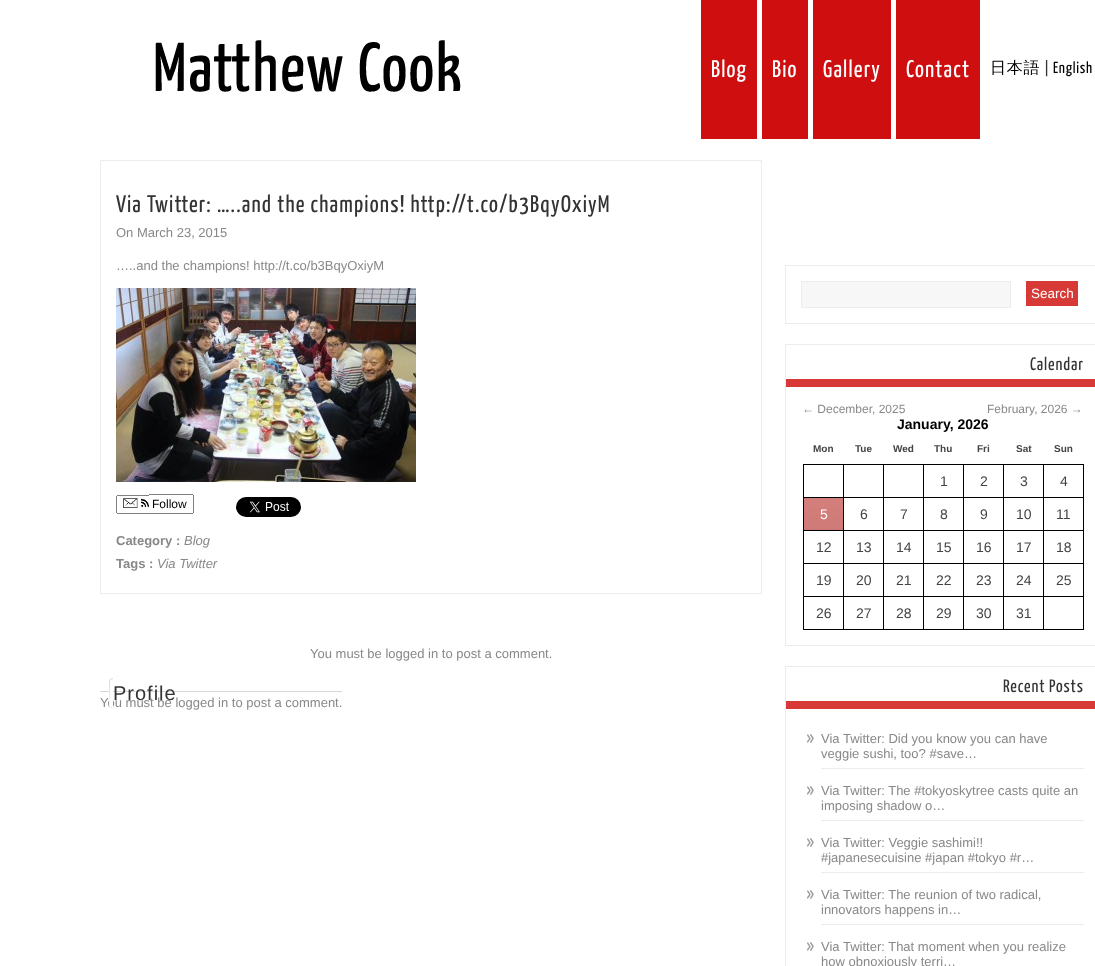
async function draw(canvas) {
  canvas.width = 1095
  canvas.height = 966
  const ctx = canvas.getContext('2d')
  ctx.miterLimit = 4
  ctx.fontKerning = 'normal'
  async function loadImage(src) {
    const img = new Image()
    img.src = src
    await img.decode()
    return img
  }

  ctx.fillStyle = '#fff'
  ctx.fillRect(0, 0, 1095, 966)
  ctx.drawImage(await loadImage('image0.png'), 155, 40, 306, 52)
  ctx.fillStyle = '#cf0f0f'
  ctx.fillRect(701, 0, 56, 139)
  ctx.letterSpacing = '1.2px'
  ctx.font = '24px Yanone Kaffeesatz'
  ctx.fillStyle = '#fff'
  ctx.fillText('Blog', 711, 77)
  ctx.fillStyle = '#cf0f0f'
  ctx.fillRect(762, 0, 46, 139)
  ctx.fillStyle = '#fff'
  ctx.fillText('Bio', 772, 77)
  ctx.fillStyle = '#cf0f0f'
  ctx.fillRect(813, 0, 78, 139)
  ctx.fillStyle = '#fff'
  ctx.fillText('Gallery', 823, 77)
  ctx.fillStyle = '#cf0f0f'
  ctx.fillRect(896, 0, 84, 139)
  ctx.fillStyle = '#fff'
  ctx.fillText('Contact', 906, 77)
  ctx.letterSpacing = '0.75px'
  ctx.font = '500 16px WenQuanYi Zen Hei'
  ctx.fillStyle = '#000'
  ctx.fillText('日本語', 990, 73)
  ctx.font = '16px Yanone Kaffeesatz'
  ctx.fillStyle = '#333'
  ctx.fillText('|', 1044, 73)
  ctx.fillStyle = '#000'
  ctx.fillText('English', 1053, 73)
  ctx.strokeStyle = '#ececec'
  ctx.strokeRect(100.5, 160.5, 661, 433)
  ctx.letterSpacing = '1.2px'
  ctx.font = '24px Yanone Kaffeesatz'
  ctx.fillStyle = '#333'
  ctx.fillText('Via Twitter: …..and the champions! http://t.co/b3BqyOxiyM', 116, 212)
  ctx.letterSpacing = '0px'
  ctx.font = '13px Liberation Sans'
  ctx.fillStyle = '#888'
  ctx.fillText('On March 23, 2015', 116, 237)
  ctx.fillText('…..and the champions! http://t.co/b3BqyOxiyM', 116, 270)
  ctx.drawImage(await loadImage('image1.png'), 116, 288, 300, 194)
  ctx.drawImage(await loadImage('image2.png'), 123, 498, 26, 10)
  ctx.font = '12px Liberation Sans'
  ctx.fillStyle = '#000'
  ctx.fillText('Follow', 152, 508)
  ctx.fillStyle = '#808080'
  ctx.fillRect(117, 495, 32, 1)
  ctx.fillRect(117, 513, 76, 1)
  ctx.fillRect(116, 496, 1, 17)
  ctx.fillRect(149, 494, 44, 1)
  ctx.fillRect(193, 495, 1, 18)
  ctx.drawImage(await loadImage('image3.png'), 236, 497, 65, 20)
  ctx.font = 'bold 13px Liberation Sans'
  ctx.fillStyle = '#888'
  ctx.fillText('Category :', 116, 545)
  ctx.font = 'italic 13px Liberation Sans'
  ctx.fillText('Blog', 184, 545)
  ctx.font = 'bold 13px Liberation Sans'
  ctx.fillText('Tags :', 116, 568)
  ctx.font = 'italic 13px Liberation Sans'
  ctx.fillText('Via Twitter', 157, 568)
  ctx.font = '13px Liberation Sans'
  ctx.fillText('You must be logged in to post a comment.', 310, 658)
  ctx.fillText('You must be logged in to post a comment.', 100, 707)
  ctx.drawImage(await loadImage('image4.png'), 100, 678, 242, 29)
  ctx.letterSpacing = '1px'
  ctx.font = '20px Liberation Sans'
  ctx.fillStyle = '#333'
  ctx.fillText('Profile', 113, 700)
  ctx.strokeRect(785.5, 265.5, 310, 58)
  ctx.fillStyle = '#f7f7f7'
  ctx.beginPath()
  ctx.rect(801.5, 281.5, 209, 26)
  ctx.fill()
  ctx.stroke()
  ctx.fillStyle = '#d73a36'
  ctx.fillRect(1026, 281, 52, 25)
  ctx.letterSpacing = '0px'
  ctx.font = '13.5px Liberation Sans'
  ctx.fillStyle = '#fff'
  ctx.fillText('Search', 1031, 298)
  ctx.strokeRect(785.5, 344.5, 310, 301)
  ctx.fillStyle = '#d73a36'
  ctx.fillRect(786, 379, 309, 8)
  ctx.letterSpacing = '0.9px'
  ctx.font = '18px Yanone Kaffeesatz'
  ctx.fillStyle = '#333'
  ctx.fillText('Calendar', 1030, 370)
  ctx.letterSpacing = '0px'
  ctx.font = '12px Liberation Sans'
  ctx.fillStyle = '#888'
  ctx.fillText('← December, 2025', 802, 413)
  ctx.fillText('February, 2026 →', 987, 413)
  ctx.font = 'bold 14px Liberation Sans'
  ctx.fillStyle = '#000'
  ctx.fillText('January, 2026', 897, 429)
  ctx.font = 'bold 10px Liberation Sans'
  ctx.fillStyle = '#444'
  ctx.fillText('Mon', 813, 452)
  ctx.fillText('Tue', 855, 452)
  ctx.fillText('Wed', 893, 452)
  ctx.fillText('Thu', 934, 452)
  ctx.fillText('Fri', 977, 452)
  ctx.fillText('Sat', 1016, 452)
  ctx.fillText('Sun', 1054, 452)
  ctx.fillStyle = '#000'
  ctx.fillRect(1043, 464, 41, 1)
  ctx.fillRect(1043, 497, 41, 1)
  ctx.fillRect(1043, 530, 41, 1)
  ctx.fillRect(1043, 563, 41, 1)
  ctx.fillRect(1043, 596, 41, 1)
  ctx.fillRect(1083, 596, 1, 34)
  ctx.fillRect(1043, 629, 41, 1)
  ctx.fillRect(1043, 596, 1, 34)
  ctx.fillRect(1003, 596, 41, 1)
  ctx.fillRect(1043, 563, 1, 34)
  ctx.fillRect(1003, 563, 41, 1)
  ctx.fillRect(1043, 530, 1, 34)
  ctx.fillRect(1003, 530, 41, 1)
  ctx.fillRect(1043, 497, 1, 34)
  ctx.fillRect(1003, 497, 41, 1)
  ctx.fillRect(1043, 464, 1, 34)
  ctx.fillRect(1003, 464, 41, 1)
  ctx.fillRect(1003, 629, 41, 1)
  ctx.fillRect(1003, 596, 1, 34)
  ctx.fillRect(963, 596, 41, 1)
  ctx.fillRect(1003, 563, 1, 34)
  ctx.fillRect(963, 563, 41, 1)
  ctx.fillRect(1003, 530, 1, 34)
  ctx.fillRect(963, 530, 41, 1)
  ctx.fillRect(1003, 497, 1, 34)
  ctx.fillRect(963, 497, 41, 1)
  ctx.fillRect(1003, 464, 1, 34)
  ctx.fillRect(963, 464, 41, 1)
  ctx.fillRect(963, 629, 41, 1)
  ctx.fillRect(963, 596, 1, 34)
  ctx.fillRect(923, 596, 41, 1)
  ctx.fillRect(963, 563, 1, 34)
  ctx.fillRect(923, 563, 41, 1)
  ctx.fillRect(963, 530, 1, 34)
  ctx.fillRect(923, 530, 41, 1)
  ctx.fillRect(963, 497, 1, 34)
  ctx.fillRect(923, 497, 41, 1)
  ctx.fillRect(963, 464, 1, 34)
  ctx.fillRect(923, 464, 41, 1)
  ctx.fillRect(923, 629, 41, 1)
  ctx.fillRect(923, 596, 1, 34)
  ctx.fillRect(883, 596, 41, 1)
  ctx.fillRect(923, 563, 1, 34)
  ctx.fillRect(883, 563, 41, 1)
  ctx.fillRect(923, 530, 1, 34)
  ctx.fillRect(883, 530, 41, 1)
  ctx.fillRect(923, 497, 1, 34)
  ctx.fillRect(883, 497, 41, 1)
  ctx.fillRect(923, 464, 1, 34)
  ctx.fillRect(883, 464, 41, 1)
  ctx.fillRect(883, 629, 41, 1)
  ctx.fillRect(883, 596, 1, 34)
  ctx.fillRect(843, 596, 41, 1)
  ctx.fillRect(883, 563, 1, 34)
  ctx.fillRect(843, 563, 41, 1)
  ctx.fillRect(883, 530, 1, 34)
  ctx.fillRect(843, 530, 41, 1)
  ctx.fillRect(883, 497, 1, 34)
  ctx.fillRect(843, 497, 41, 1)
  ctx.fillRect(883, 464, 1, 34)
  ctx.fillRect(843, 464, 41, 1)
  ctx.fillRect(843, 629, 41, 1)
  ctx.fillRect(843, 596, 1, 34)
  ctx.fillRect(803, 596, 41, 1)
  ctx.fillRect(843, 563, 1, 34)
  ctx.fillRect(803, 563, 41, 1)
  ctx.fillRect(843, 530, 1, 34)
  ctx.fillRect(803, 530, 41, 1)
  ctx.fillRect(843, 497, 1, 34)
  ctx.fillRect(803, 497, 41, 1)
  ctx.fillRect(843, 464, 1, 34)
  ctx.fillRect(803, 464, 41, 1)
  ctx.fillRect(803, 629, 41, 1)
  ctx.fillRect(803, 596, 1, 34)
  ctx.fillRect(803, 563, 1, 34)
  ctx.fillRect(803, 530, 1, 34)
  ctx.fillRect(803, 497, 1, 34)
  ctx.fillRect(803, 464, 1, 34)
  ctx.font = '14px Liberation Sans'
  ctx.fillStyle = '#444'
  ctx.fillText('1', 940, 486)
  ctx.fillText('2', 980, 486)
  ctx.fillText('3', 1020, 486)
  ctx.fillStyle = '#000'
  ctx.fillRect(1083, 563, 1, 34)
  ctx.fillRect(1083, 530, 1, 34)
  ctx.fillRect(1083, 497, 1, 34)
  ctx.fillRect(1083, 464, 1, 34)
  ctx.fillStyle = '#444'
  ctx.fillText('4', 1060, 486)
  ctx.drawImage(await loadImage('image5.png'), 804, 498, 39, 32)
  ctx.fillStyle = '#fff'
  ctx.fillText('5', 820, 519)
  ctx.fillStyle = '#444'
  ctx.fillText('6', 860, 519)
  ctx.fillText('7', 900, 519)
  ctx.fillText('8', 940, 519)
  ctx.fillText('9', 980, 519)
  ctx.fillText('10', 1016, 519)
  ctx.fillText('11', 1056, 519)
  ctx.fillText('12', 816, 552)
  ctx.fillText('13', 856, 552)
  ctx.fillText('14', 896, 552)
  ctx.fillText('15', 936, 552)
  ctx.fillText('16', 976, 552)
  ctx.fillText('17', 1016, 552)
  ctx.fillText('18', 1056, 552)
  ctx.fillText('19', 816, 585)
  ctx.fillText('20', 856, 585)
  ctx.fillText('21', 896, 585)
  ctx.fillText('22', 936, 585)
  ctx.fillText('23', 976, 585)
  ctx.fillText('24', 1016, 585)
  ctx.fillText('25', 1056, 585)
  ctx.fillText('26', 816, 618)
  ctx.fillText('27', 856, 618)
  ctx.fillText('28', 896, 618)
  ctx.fillText('29', 936, 618)
  ctx.fillText('30', 976, 618)
  ctx.fillText('31', 1016, 618)
  ctx.strokeRect(785.5, 666.5, 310, 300)
  ctx.fillStyle = '#d73a36'
  ctx.fillRect(786, 701, 309, 8)
  ctx.letterSpacing = '0.9px'
  ctx.font = '18px Yanone Kaffeesatz'
  ctx.fillStyle = '#333'
  ctx.fillText('Recent Posts', 1003, 692)
  ctx.fillStyle = '#ececec'
  ctx.fillRect(821, 768, 263, 1)
  ctx.drawImage(await loadImage('image6.png'), 807, 734, 7, 9)
  ctx.letterSpacing = '0px'
  ctx.font = '13px Liberation Sans'
  ctx.fillStyle = '#888'
  ctx.fillText('Via Twitter: Did you know you can have', 821, 743)
  ctx.fillText('veggie sushi, too? #save…', 821, 758)
  ctx.fillStyle = '#ececec'
  ctx.fillRect(821, 820, 263, 1)
  ctx.drawImage(await loadImage('image6.png'), 807, 786, 7, 9)
  ctx.fillStyle = '#888'
  ctx.fillText('Via Twitter: The #tokyoskytree casts quite an', 821, 795)
  ctx.fillText('imposing shadow o…', 821, 810)
  ctx.fillStyle = '#ececec'
  ctx.fillRect(821, 872, 263, 1)
  ctx.drawImage(await loadImage('image6.png'), 807, 838, 7, 9)
  ctx.fillStyle = '#888'
  ctx.fillText('Via Twitter: Veggie sashimi!!', 821, 847)
  ctx.fillText('#japanesecuisine #japan #tokyo #r…', 821, 862)
  ctx.fillStyle = '#ececec'
  ctx.fillRect(821, 924, 263, 1)
  ctx.drawImage(await loadImage('image6.png'), 807, 890, 7, 9)
  ctx.fillStyle = '#888'
  ctx.fillText('Via Twitter: The reunion of two radical,', 821, 899)
  ctx.fillText('innovators happens in…', 821, 914)
  ctx.drawImage(await loadImage('image6.png'), 807, 942, 7, 9)
  ctx.fillText('Via Twitter: That moment when you realize', 821, 951)
  ctx.fillText('how obnoxiously terri…', 821, 966)
}

draw(document.querySelector('canvas'))
